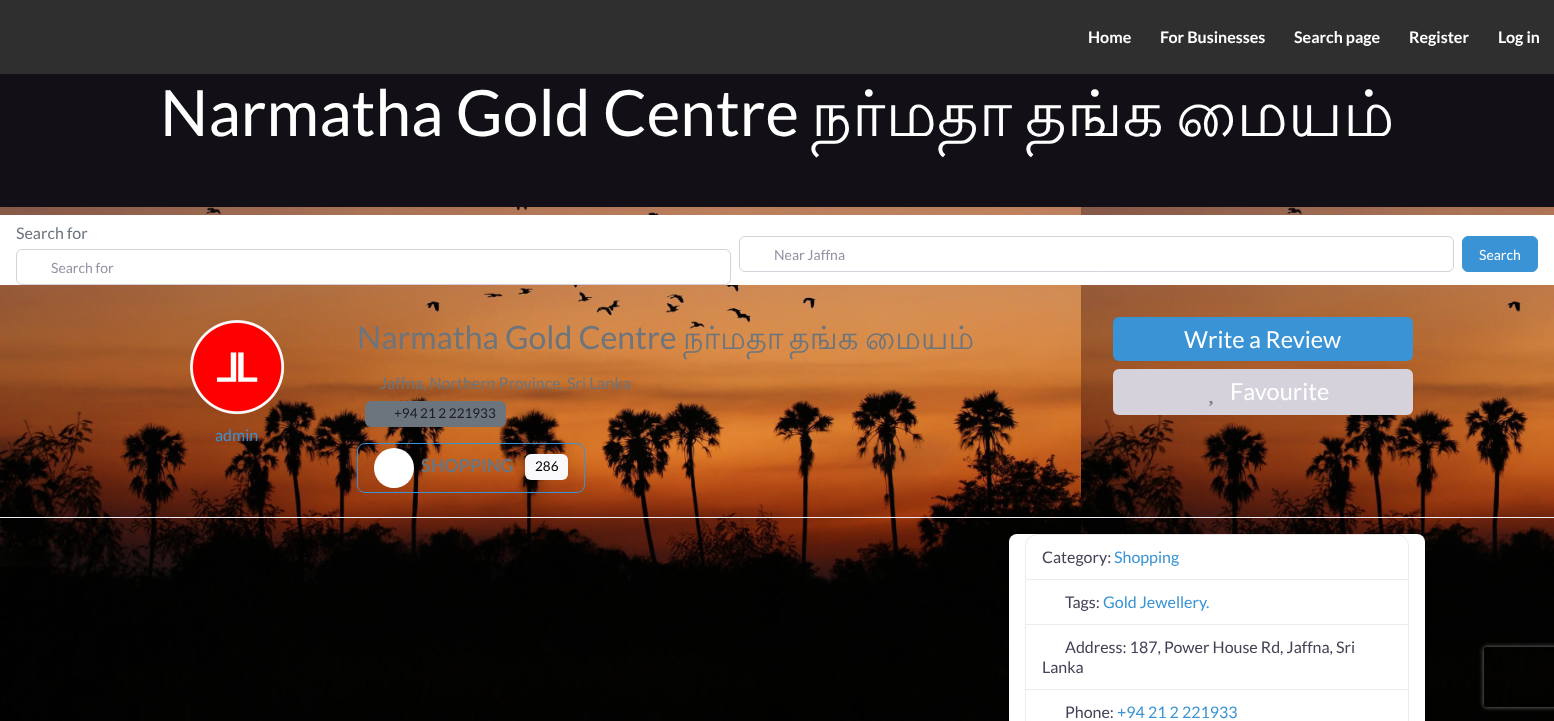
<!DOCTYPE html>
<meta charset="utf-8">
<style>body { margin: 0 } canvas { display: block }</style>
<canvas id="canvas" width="1554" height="721"></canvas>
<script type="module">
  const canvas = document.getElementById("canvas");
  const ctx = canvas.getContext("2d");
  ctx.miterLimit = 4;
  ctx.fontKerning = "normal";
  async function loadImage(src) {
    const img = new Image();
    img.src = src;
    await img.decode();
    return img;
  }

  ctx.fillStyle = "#ffffff";
  ctx.fillRect(0, 0, 1554, 721);
  ctx.drawImage(await loadImage("img1.png"), 0, 207, 1554, 514);
  ctx.fillStyle = "#2f2f2f";
  ctx.fillRect(0, 0, 1554, 74);
  ctx.font = "bold 16px Lato";
  ctx.fillStyle = "#ffffff";
  ctx.fillText("Home", 1088, 43);
  ctx.fillText("For Businesses", 1160, 43);
  ctx.fillText("Search page", 1294, 43);
  ctx.fillText("Register", 1409, 43);
  ctx.fillText("Log in", 1498, 43);
  ctx.fillStyle = "#121016";
  ctx.fillRect(0, 74, 1554, 133);
  ctx.font = "64px Lato";
  ctx.fillStyle = "#ffffff";
  ctx.fillText("Narmatha Gold Centre", 160, 136);
  ctx.font = "64px Lohit Tamil";
  ctx.fillText("நர்மதா", 811, 136);
  ctx.fillText("தங்க", 1025, 136);
  ctx.fillText("மையம்", 1176, 136);
  ctx.fillRect(0, 215, 1554, 70);
  ctx.font = "16px Lato";
  ctx.fillStyle = "#6c757d";
  ctx.fillText("Search for", 16, 239);
  ctx.beginPath();
  ctx.roundRect(16.5, 249.5, 714, 35, 5.5);
  ctx.strokeStyle = "#d5d2dc";
  ctx.stroke();
  ctx.font = "14px Lato";
  ctx.fillStyle = "#9691a4";
  ctx.fillText("Search for", 51, 273);
  ctx.beginPath();
  ctx.roundRect(739.5, 236.5, 714, 35, 5.5);
  ctx.stroke();
  ctx.fillText("Near Jaffna", 774, 260);
  ctx.fillStyle = "#3993d5";
  ctx.beginPath();
  ctx.roundRect(1462.5, 236.5, 75, 35, 5.5);
  ctx.fill();
  ctx.strokeStyle = "#3993d5";
  ctx.stroke();
  ctx.fillStyle = "#ffffff";
  ctx.fillText("Search", 1479, 260);
  ctx.fillStyle = "#efecf3";
  ctx.fillRect(0, 517, 1554, 1);
  ctx.font = "32px Lato";
  ctx.fillStyle = "#6c757d";
  ctx.fillText("Narmatha Gold Centre", 357, 349);
  ctx.font = "32px Lohit Tamil";
  ctx.fillText("நர்மதா", 683, 349);
  ctx.fillText("தங்க", 789, 349);
  ctx.fillText("மையம்", 865, 349);
  ctx.font = "16px Lato";
  ctx.fillText("Jaffna, Northern Province, Sri Lanka", 380, 389);
  ctx.beginPath();
  ctx.roundRect(365, 401, 141, 26, 6);
  ctx.fill();
  ctx.font = "13.5px Lato";
  ctx.fillStyle = "#1f1b2d";
  ctx.fillText("+94 21 2 221933", 394, 418);
  ctx.beginPath();
  ctx.roundRect(357.5, 443.5, 227, 49, 7.5);
  ctx.stroke();
  ctx.fillStyle = "#ffffff";
  ctx.beginPath();
  ctx.arc(394, 468, 20, 0, Math.PI * 2);
  ctx.fill();
  ctx.font = "bold 18px Lato";
  ctx.fillStyle = "#6c757d";
  ctx.fillText("SHOPPING", 421, 472);
  ctx.fillStyle = "#f9f8fa";
  ctx.beginPath();
  ctx.roundRect(525, 454, 43, 26, 6);
  ctx.fill();
  ctx.font = "13.5px Lato";
  ctx.fillStyle = "#000000";
  ctx.fillText("286", 535, 471);
  ctx.fillStyle = "#3993d5";
  ctx.beginPath();
  ctx.roundRect(1113, 317, 300, 44, 6);
  ctx.fill();
  ctx.font = "23.5px Lato";
  ctx.fillStyle = "#ffffff";
  ctx.fillText("Write a Review", 1184, 348);
  ctx.fillStyle = "#d5d2dc";
  ctx.beginPath();
  ctx.roundRect(1113, 369, 300, 46, 6);
  ctx.fill();
  ctx.fillStyle = "#ffffff";
  ctx.fillText("Favourite", 1230, 400);
  ctx.drawImage(await loadImage("img2.png"), 1208, 400, 5, 6);
  ctx.drawImage(await loadImage("img3.png"), 190, 320, 95, 95);
  ctx.font = "16px Lato";
  ctx.fillStyle = "#3993d5";
  ctx.fillText("admin", 215, 441);
  ctx.fillStyle = "#ffffff";
  ctx.beginPath();
  ctx.roundRect(1009, 534, 416, 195, 8);
  ctx.fill();
  ctx.beginPath();
  ctx.roundRect(1025.5, 534.5, 383, 45, [11.5, 11.5, 0, 0]);
  ctx.strokeStyle = "#ebebeb";
  ctx.stroke();
  ctx.fillStyle = "#454056";
  ctx.fillText("Category:", 1042, 563);
  ctx.fillStyle = "#3993d5";
  ctx.fillText("Shopping", 1114, 563);
  ctx.fillStyle = "#ebebeb";
  ctx.beginPath();
  ctx.moveTo(1409, 580);
  ctx.lineTo(1409, 625);
  ctx.lineTo(1408, 624);
  ctx.lineTo(1408, 580);
  ctx.closePath();
  ctx.fill();
  ctx.fillStyle = "rgba(0, 0, 0, 0.08)";
  ctx.beginPath();
  ctx.moveTo(1409, 625);
  ctx.lineTo(1025, 625);
  ctx.lineTo(1026, 624);
  ctx.lineTo(1408, 624);
  ctx.closePath();
  ctx.fill();
  ctx.beginPath();
  ctx.moveTo(1025, 625);
  ctx.lineTo(1025, 580);
  ctx.lineTo(1026, 580);
  ctx.lineTo(1026, 624);
  ctx.closePath();
  ctx.fill();
  ctx.fillStyle = "#454056";
  ctx.fillText("Tags:", 1065, 608);
  ctx.fillStyle = "#3993d5";
  ctx.fillText("Gold Jewellery.", 1103, 608);
  ctx.fillStyle = "#ebebeb";
  ctx.beginPath();
  ctx.moveTo(1409, 625);
  ctx.lineTo(1409, 690);
  ctx.lineTo(1408, 689);
  ctx.lineTo(1408, 625);
  ctx.closePath();
  ctx.fill();
  ctx.fillStyle = "rgba(0, 0, 0, 0.08)";
  ctx.beginPath();
  ctx.moveTo(1409, 690);
  ctx.lineTo(1025, 690);
  ctx.lineTo(1026, 689);
  ctx.lineTo(1408, 689);
  ctx.closePath();
  ctx.fill();
  ctx.beginPath();
  ctx.moveTo(1025, 690);
  ctx.lineTo(1025, 625);
  ctx.lineTo(1026, 625);
  ctx.lineTo(1026, 689);
  ctx.closePath();
  ctx.fill();
  ctx.fillStyle = "#454056";
  ctx.fillText("Address: 187, Power House Rd, Jaffna, Sri", 1065, 653);
  ctx.fillText("Lanka", 1042, 673);
  ctx.fillStyle = "#ebebeb";
  ctx.beginPath();
  ctx.moveTo(1025, 690);
  ctx.lineTo(1409, 690);
  ctx.lineTo(1409, 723);
  ctx.bezierCurveTo(1409, 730, 1404, 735, 1397, 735);
  ctx.lineTo(1037, 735);
  ctx.bezierCurveTo(1030, 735, 1025, 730, 1025, 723);
  ctx.closePath();
  ctx.moveTo(1026, 690);
  ctx.lineTo(1408, 690);
  ctx.lineTo(1408, 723);
  ctx.bezierCurveTo(1408, 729, 1403, 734, 1397, 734);
  ctx.lineTo(1037, 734);
  ctx.bezierCurveTo(1031, 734, 1026, 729, 1026, 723);
  ctx.closePath();
  ctx.fill("evenodd");
  ctx.fillStyle = "#454056";
  ctx.fillText("Phone:", 1065, 718);
  ctx.fillStyle = "#3993d5";
  ctx.fillText("+94 21 2 221933", 1117, 718);
  ctx.save();
  ctx.beginPath();
  ctx.moveTo(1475, 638);
  ctx.lineTo(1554, 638);
  ctx.lineTo(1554, 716);
  ctx.lineTo(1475, 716);
  ctx.closePath();
  ctx.moveTo(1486, 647);
  ctx.lineTo(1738, 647);
  ctx.bezierCurveTo(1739, 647, 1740, 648, 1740, 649);
  ctx.lineTo(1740, 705);
  ctx.bezierCurveTo(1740, 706, 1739, 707, 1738, 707);
  ctx.lineTo(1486, 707);
  ctx.bezierCurveTo(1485, 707, 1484, 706, 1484, 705);
  ctx.lineTo(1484, 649);
  ctx.bezierCurveTo(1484, 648, 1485, 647, 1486, 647);
  ctx.closePath();
  ctx.clip("evenodd");
  ctx.fillStyle = "#808080";
  ctx.filter = "blur(2.5px)";
  ctx.beginPath();
  ctx.roundRect(1484, 647, 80, 60, 2);
  ctx.fill();
  ctx.filter = "none";
  ctx.restore();
</script>
